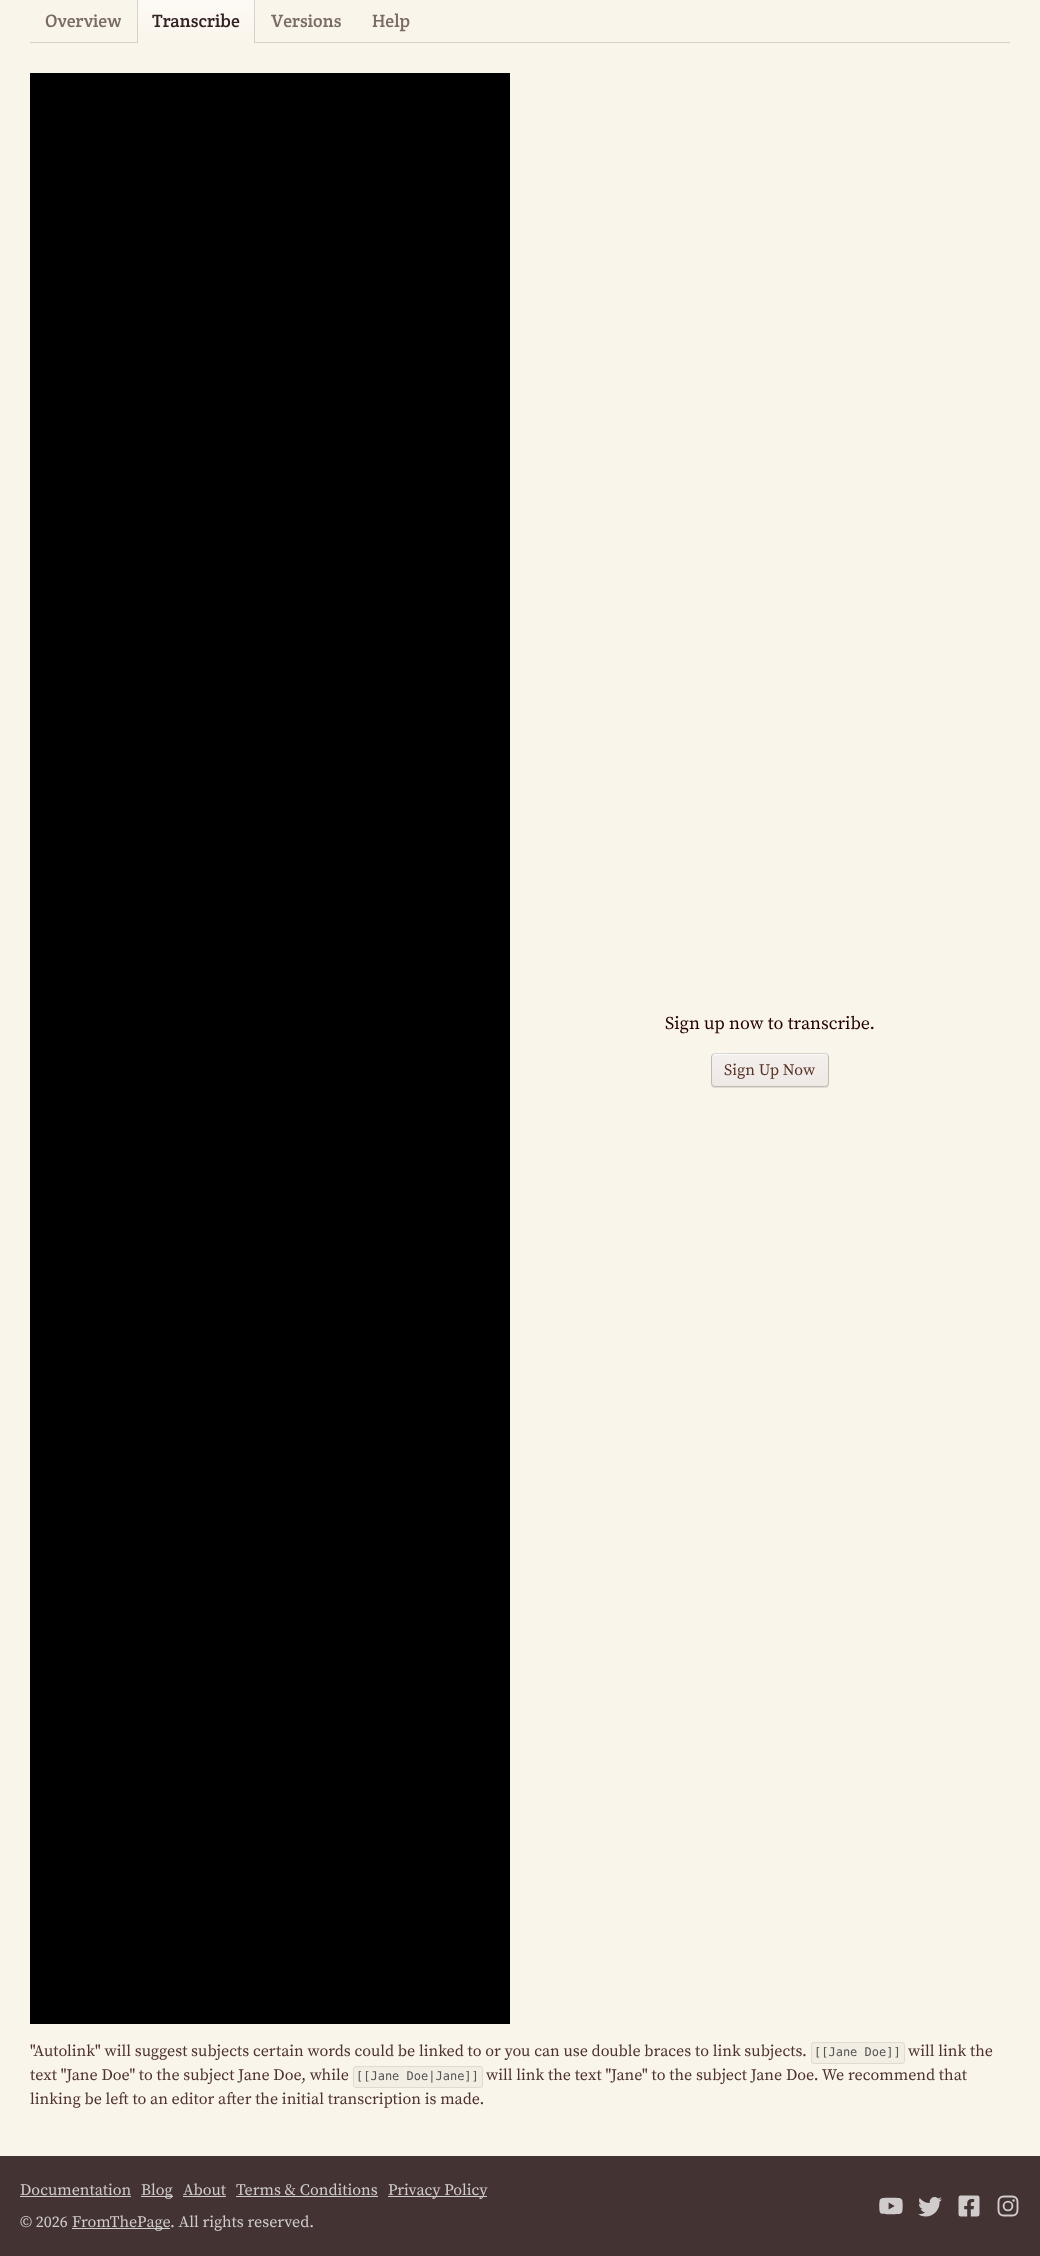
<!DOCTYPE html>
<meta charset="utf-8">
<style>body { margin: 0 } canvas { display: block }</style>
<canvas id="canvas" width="1040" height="2256"></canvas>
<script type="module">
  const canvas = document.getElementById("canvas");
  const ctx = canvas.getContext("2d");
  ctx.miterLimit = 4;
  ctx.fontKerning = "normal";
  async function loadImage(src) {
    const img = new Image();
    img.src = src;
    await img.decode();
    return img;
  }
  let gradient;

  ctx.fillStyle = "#faf5eb";
  ctx.fillRect(0, 0, 1040, 2256);
  ctx.fillStyle = "#d5d0c8";
  ctx.fillRect(30, 42, 980, 1);
  ctx.font = "18px Crete Round";
  ctx.fillStyle = "#796c68";
  ctx.fillText("Overview", 45, 27);
  gradient = ctx.createLinearGradient(196, -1, 196, 43);
  gradient.addColorStop(0, "#fdfaf5");
  gradient.addColorStop(1, "#faf5eb");
  ctx.fillStyle = gradient;
  ctx.fillRect(137, 0, 118, 43);
  ctx.fillStyle = "rgba(0, 0, 0, 0.15)";
  ctx.beginPath();
  ctx.moveTo(140, -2);
  ctx.lineTo(252, -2);
  ctx.bezierCurveTo(254, -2, 255, -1, 255, 1);
  ctx.lineTo(255, 43);
  ctx.lineTo(137, 43);
  ctx.lineTo(137, 1);
  ctx.bezierCurveTo(137, -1, 138, -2, 140, -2);
  ctx.closePath();
  ctx.moveTo(140, -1);
  ctx.lineTo(252, -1);
  ctx.bezierCurveTo(253, -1, 254, 0, 254, 1);
  ctx.lineTo(254, 43);
  ctx.lineTo(138, 43);
  ctx.lineTo(138, 1);
  ctx.bezierCurveTo(138, 0, 139, -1, 140, -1);
  ctx.closePath();
  ctx.fill("evenodd");
  ctx.fillStyle = "#332222";
  ctx.fillText("Transcribe", 152, 27);
  ctx.fillStyle = "#796c68";
  ctx.fillText("Versions", 271, 27);
  ctx.fillText("Help", 372, 27);
  ctx.fillStyle = "#000000";
  ctx.fillRect(30, 73, 480, 1951);
  ctx.font = "18px Source Serif Pro";
  ctx.fillStyle = "#220000";
  ctx.fillText("Sign up now to transcribe.", 665, 1029);
  ctx.fillStyle = "rgba(0, 0, 0, 0.1)";
  ctx.filter = "blur(0.5px)";
  ctx.beginPath();
  ctx.roundRect(711, 1054, 118, 34, 4);
  ctx.fill();
  ctx.filter = "none";
  ctx.fillStyle = "#efe9e6";
  ctx.beginPath();
  ctx.roundRect(712, 1054, 116, 32, 3);
  ctx.fill();
  gradient = ctx.createLinearGradient(770, 1054, 770, 1086);
  gradient.addColorStop(0, "rgba(255, 255, 255, 0.3)");
  gradient.addColorStop(1, "rgba(255, 255, 255, 0)");
  ctx.fillStyle = gradient;
  ctx.beginPath();
  ctx.roundRect(712, 1054, 116, 32, 3);
  ctx.fill();
  ctx.fillStyle = "rgba(255, 255, 255, 0.8)";
  ctx.beginPath();
  ctx.moveTo(715, 1055);
  ctx.lineTo(825, 1055);
  ctx.bezierCurveTo(827, 1055, 828, 1056, 828, 1058);
  ctx.bezierCurveTo(828, 1056, 827, 1054, 825, 1054);
  ctx.lineTo(733, 1054);
  ctx.bezierCurveTo(732, 1054, 712, 1049, 712, 1058);
  ctx.bezierCurveTo(712, 1056, 713, 1055, 715, 1055);
  ctx.closePath();
  ctx.fill();
  ctx.beginPath();
  ctx.roundRect(711.5, 1053.5, 117, 33, 3.5);
  ctx.strokeStyle = "rgba(0, 0, 0, 0.15)";
  ctx.stroke();
  ctx.font = "16px Source Serif Pro";
  ctx.fillStyle = "#553322";
  ctx.fillText("Sign Up Now", 724, 1075);
  ctx.fillStyle = "#4d312f";
  ctx.fillText("\"Autolink\" will suggest subjects certain words could be linked to or you can use double braces to link subjects.", 30, 2056);
  ctx.fillStyle = "#f3eee4";
  ctx.beginPath();
  ctx.roundRect(811, 2042, 94, 22, 3);
  ctx.fill();
  ctx.beginPath();
  ctx.roundRect(811.5, 2042.5, 93, 21, 2.5);
  ctx.strokeStyle = "rgba(0, 0, 0, 0.08)";
  ctx.stroke();
  ctx.font = "12px DejaVu Sans Mono";
  ctx.fillStyle = "#555555";
  ctx.fillText("[[Jane Doe]]", 814, 2056);
  ctx.font = "16px Source Serif Pro";
  ctx.fillStyle = "#4d312f";
  ctx.fillText("will link the", 908, 2056);
  ctx.fillText("text \"Jane Doe\" to the subject Jane Doe, while", 30, 2080);
  ctx.fillStyle = "#f3eee4";
  ctx.beginPath();
  ctx.roundRect(353, 2066, 130, 22, 3);
  ctx.fill();
  ctx.beginPath();
  ctx.roundRect(353.5, 2066.5, 129, 21, 2.5);
  ctx.stroke();
  ctx.font = "12px DejaVu Sans Mono";
  ctx.fillStyle = "#555555";
  ctx.fillText("[[Jane Doe|Jane]]", 356, 2080);
  ctx.font = "16px Source Serif Pro";
  ctx.fillStyle = "#4d312f";
  ctx.fillText("will link the text \"Jane\" to the subject Jane Doe. We recommend that", 486, 2080);
  ctx.fillText("linking be left to an editor after the initial transcription is made.", 30, 2104);
  ctx.fillStyle = "#443333";
  ctx.fillRect(0, 2156, 1040, 100);
  ctx.fillStyle = "#d0cccc";
  ctx.fillText("Documentation", 20, 2195);
  ctx.fillRect(20, 2196, 111, 1);
  ctx.fillRect(141, 2196, 32, 1);
  ctx.fillText("Blog", 141, 2195);
  ctx.fillText("About", 183, 2195);
  ctx.fillRect(183, 2196, 43, 1);
  ctx.fillText("Terms & Conditions", 236, 2195);
  ctx.fillRect(236, 2196, 142, 1);
  ctx.fillRect(388, 2196, 99, 1);
  ctx.fillText("Privacy Policy", 388, 2195);
  ctx.fillText("© 2026", 20, 2227);
  ctx.fillRect(72, 2228, 98, 1);
  ctx.fillText("FromThePage", 72, 2227);
  ctx.fillText(". All rights reserved.", 170, 2227);
  ctx.drawImage(await loadImage("img1.png"), 879, 2197, 24, 18);
  ctx.drawImage(await loadImage("img2.png"), 918, 2197, 24, 20);
  ctx.drawImage(await loadImage("img3.png"), 958, 2195, 22, 22);
  ctx.drawImage(await loadImage("img4.png"), 997, 2195, 22, 22);
</script>
